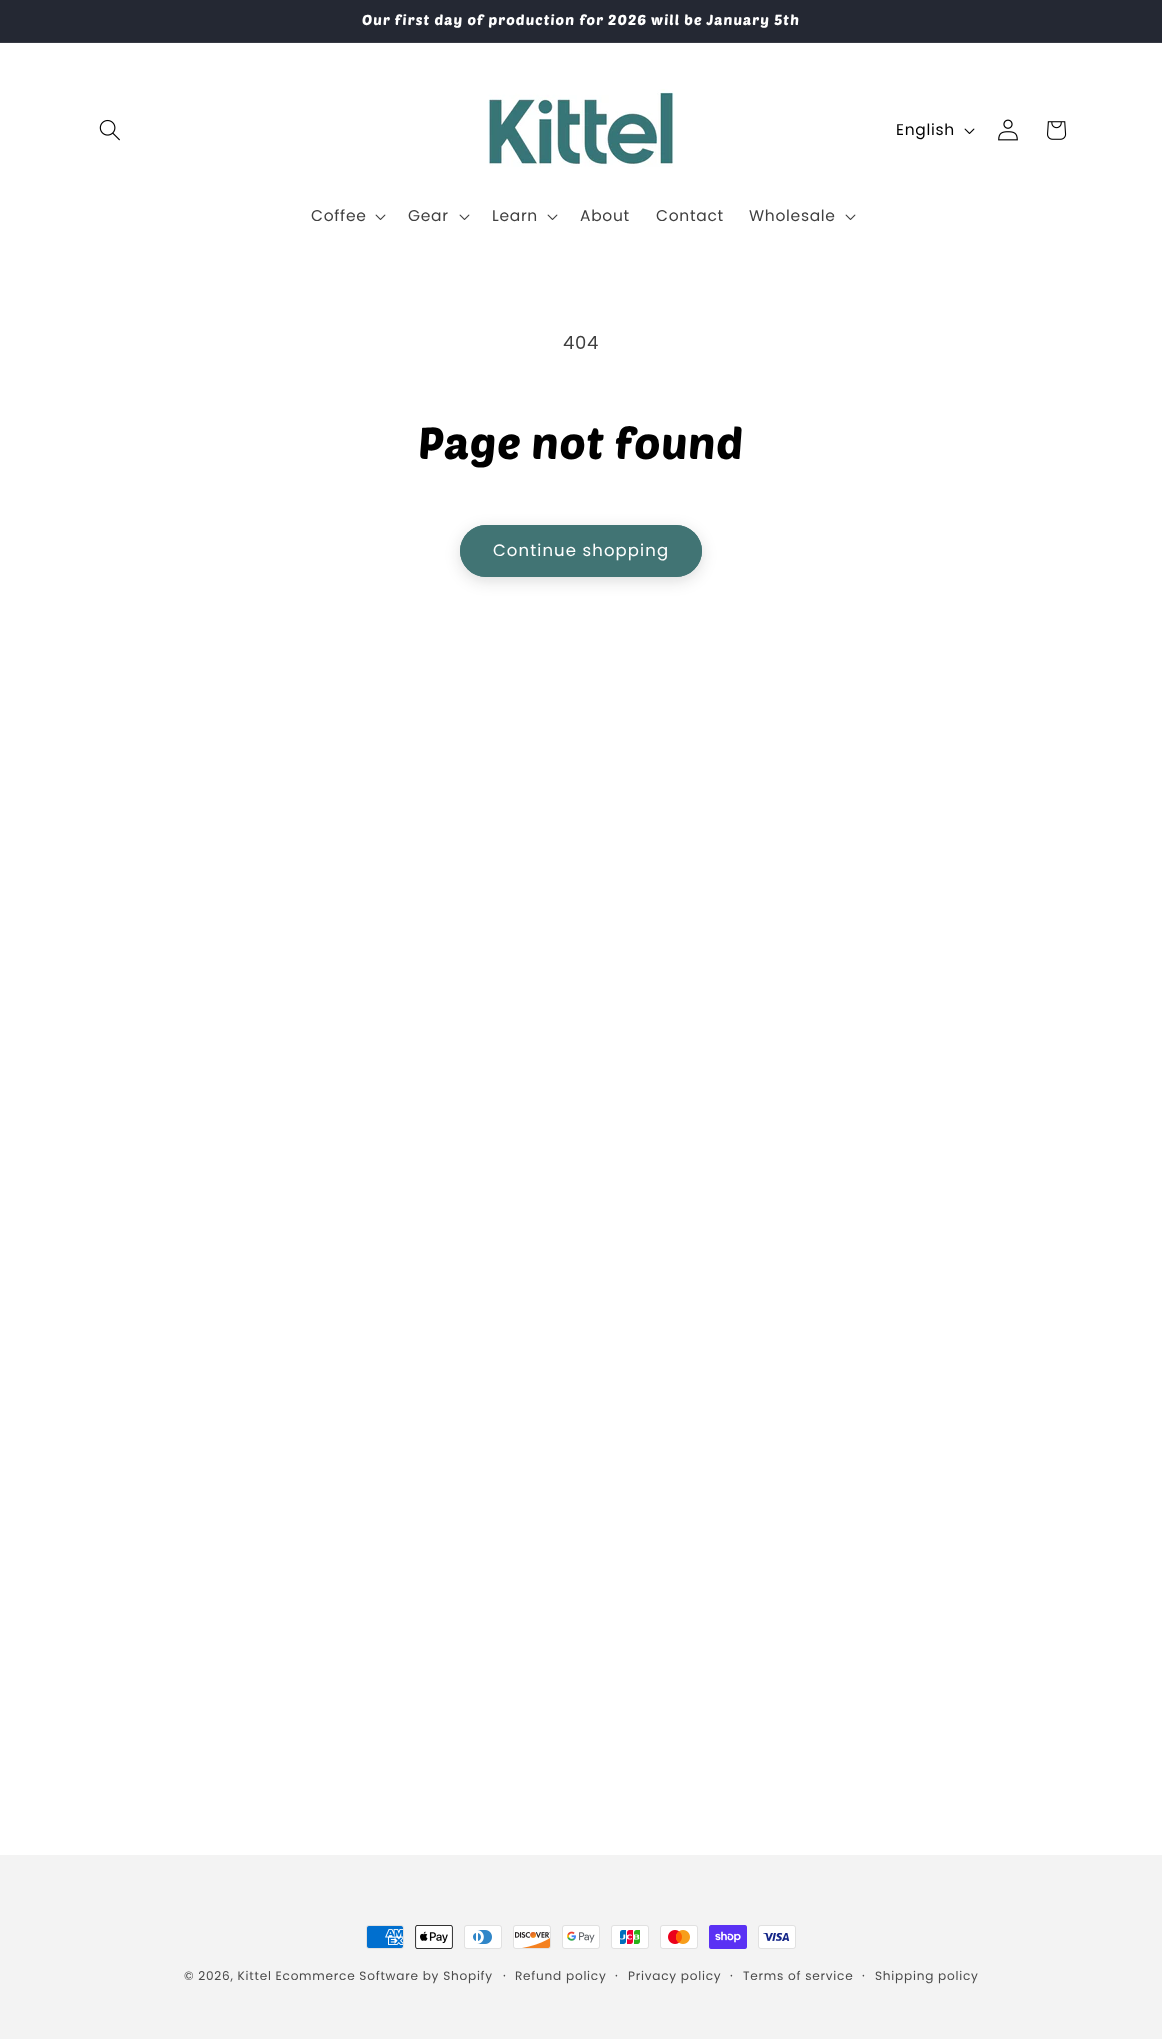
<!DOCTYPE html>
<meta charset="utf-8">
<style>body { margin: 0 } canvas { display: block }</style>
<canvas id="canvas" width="1162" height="2039"></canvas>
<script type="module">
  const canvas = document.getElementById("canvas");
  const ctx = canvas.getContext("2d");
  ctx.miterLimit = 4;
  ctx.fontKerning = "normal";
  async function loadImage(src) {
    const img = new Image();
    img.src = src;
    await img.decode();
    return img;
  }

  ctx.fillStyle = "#ffffff";
  ctx.fillRect(0, 0, 1162, 2039);
  ctx.fillStyle = "#242833";
  ctx.fillRect(0, 0, 1162, 42);
  ctx.fillStyle = "#363943";
  ctx.fillRect(0, 42, 1162, 1);
  ctx.letterSpacing = "1.1px";
  ctx.font = "14.3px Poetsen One";
  ctx.fillStyle = "#ffffff";
  ctx.fillText("Our first day of production for 2026 will be January 5th", 362, 25);
  ctx.drawImage(await loadImage("img1.png"), 99, 119, 21, 22);
  ctx.drawImage(await loadImage("img2.png"), 488, 89, 186, 78);
  ctx.letterSpacing = "0.7px";
  ctx.font = "15.5px Poppins";
  ctx.fillStyle = "#000000";
  ctx.fillText("English", 896, 135);
  ctx.drawImage(await loadImage("img3.png"), 964, 128, 11, 6);
  ctx.drawImage(await loadImage("img4.png"), 998, 119, 20, 22);
  ctx.drawImage(await loadImage("img5.png"), 1047, 121, 20, 19);
  ctx.fillStyle = "#404040";
  ctx.fillText("Coffee", 311, 221);
  ctx.drawImage(await loadImage("img6.png"), 375, 214, 11, 6);
  ctx.fillText("Gear", 408, 221);
  ctx.drawImage(await loadImage("img6.png"), 459, 214, 11, 6);
  ctx.fillText("Learn", 492, 221);
  ctx.drawImage(await loadImage("img6.png"), 547, 214, 11, 6);
  ctx.fillText("About", 580, 221);
  ctx.fillText("Contact", 656, 221);
  ctx.fillText("Wholesale", 749, 221);
  ctx.drawImage(await loadImage("img6.png"), 845, 214, 11, 6);
  ctx.font = "18px Poppins";
  ctx.fillText("404", 563, 349);
  ctx.font = "44px Poetsen One";
  ctx.fillStyle = "#000000";
  ctx.fillText("Page not found", 418, 459);
  ctx.fillStyle = "rgba(18, 18, 18, 0.15)";
  ctx.filter = "blur(7.5px)";
  ctx.beginPath();
  ctx.roundRect(460, 529, 242, 52, 26);
  ctx.fill();
  ctx.filter = "none";
  ctx.fillStyle = "#417474";
  ctx.beginPath();
  ctx.roundRect(460, 525, 242, 52, 26);
  ctx.fill();
  ctx.beginPath();
  ctx.roundRect(460.5, 525.5, 241, 51, 25.5);
  ctx.strokeStyle = "#417474";
  ctx.stroke();
  ctx.letterSpacing = "1.1px";
  ctx.font = "16.5px Poppins";
  ctx.fillStyle = "#ffffff";
  ctx.fillText("Continue shopping", 493, 556);
  ctx.fillStyle = "#f3f3f3";
  ctx.fillRect(0, 1855, 1162, 184);
  ctx.drawImage(await loadImage("img7.png"), 366, 1925, 38, 24);
  ctx.drawImage(await loadImage("img8.png"), 415, 1925, 38, 24);
  ctx.drawImage(await loadImage("img9.png"), 464, 1925, 38, 24);
  ctx.drawImage(await loadImage("img10.png"), 513, 1925, 38, 24);
  ctx.drawImage(await loadImage("img11.png"), 562, 1925, 38, 24);
  ctx.drawImage(await loadImage("img12.png"), 611, 1925, 38, 24);
  ctx.drawImage(await loadImage("img13.png"), 660, 1925, 38, 24);
  ctx.drawImage(await loadImage("img14.png"), 709, 1925, 38, 24);
  ctx.drawImage(await loadImage("img15.png"), 758, 1925, 38, 24);
  ctx.letterSpacing = "0.75px";
  ctx.font = "12.1px Poppins";
  ctx.fillStyle = "#4a4a4a";
  ctx.fillText("© 2026, Kittel Ecommerce Software by Shopify", 184, 1980);
  ctx.font = "13px Poppins";
  ctx.fillText("·", 503, 1980);
  ctx.font = "12.1px Poppins";
  ctx.fillText("Refund policy", 515, 1980);
  ctx.font = "13px Poppins";
  ctx.fillText("·", 615, 1980);
  ctx.font = "12.1px Poppins";
  ctx.fillText("Privacy policy", 628, 1980);
  ctx.font = "13px Poppins";
  ctx.fillText("·", 730, 1980);
  ctx.font = "12.1px Poppins";
  ctx.fillText("Terms of service", 743, 1980);
  ctx.font = "13px Poppins";
  ctx.fillText("·", 862, 1980);
  ctx.font = "12.1px Poppins";
  ctx.fillText("Shipping policy", 875, 1980);
</script>
